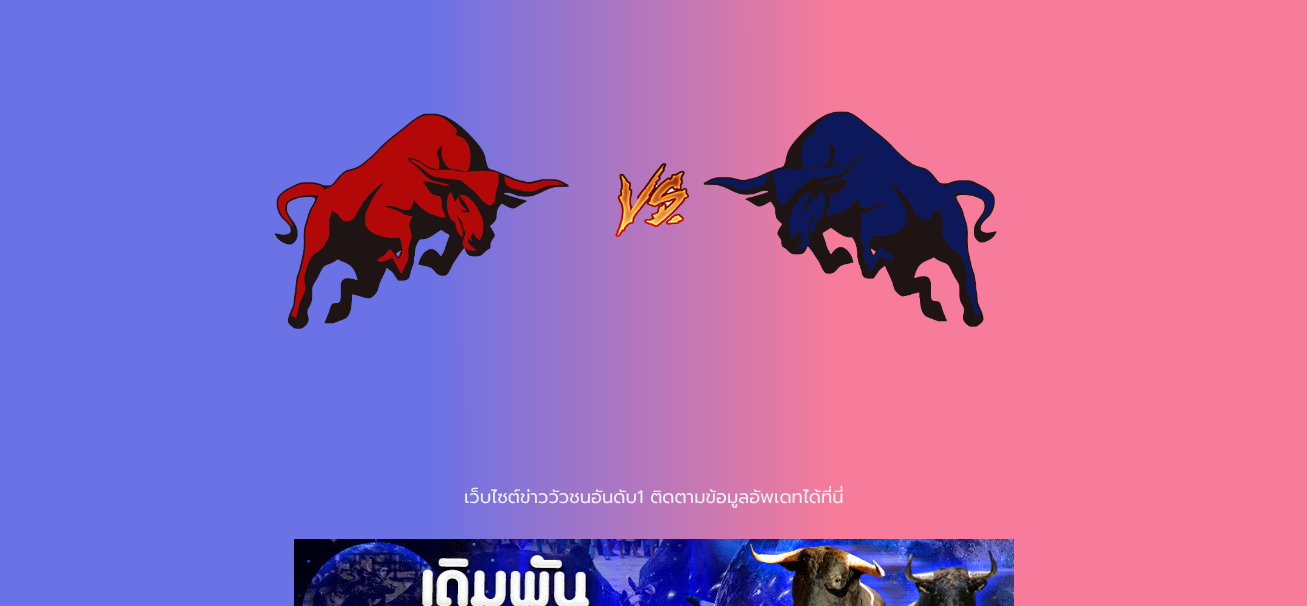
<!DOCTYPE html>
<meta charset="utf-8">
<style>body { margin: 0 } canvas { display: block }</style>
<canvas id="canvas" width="1307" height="606"></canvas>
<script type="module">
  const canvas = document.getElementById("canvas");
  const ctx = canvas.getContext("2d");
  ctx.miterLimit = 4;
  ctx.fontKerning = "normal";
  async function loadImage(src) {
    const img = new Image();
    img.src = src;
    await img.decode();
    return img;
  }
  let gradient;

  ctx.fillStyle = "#ffffff";
  ctx.fillRect(0, 0, 1307, 606);
  gradient = ctx.createLinearGradient(0, 380, 1307, 379);
  gradient.addColorStop(0.33, "#6b72e5");
  gradient.addColorStop(0.64, "#f77b9a");
  ctx.fillStyle = gradient;
  ctx.fillRect(0, 0, 1307, 606);
  ctx.drawImage(await loadImage("img1.png"), 274, 113, 295, 216);
  ctx.drawImage(await loadImage("img2.png"), 615, 163, 74, 74);
  ctx.drawImage(await loadImage("img3.png"), 703, 111, 294, 216);
  ctx.font = "18px Prompt";
  ctx.fillStyle = "#ededf4";
  ctx.fillText("เว็บไซต์ข่าววัวชนอันดับ1 ติดตามข้อมูลอัพเดทได้ที่นี่", 464, 503);
  ctx.drawImage(await loadImage("img4.png"), 294, 539, 720, 67);
</script>
